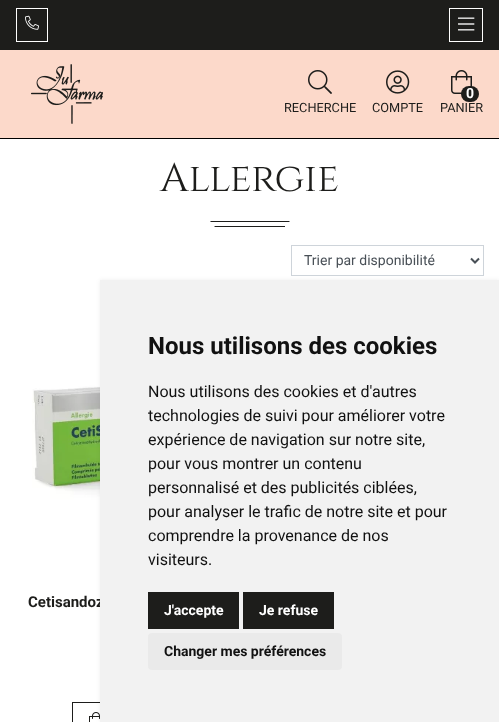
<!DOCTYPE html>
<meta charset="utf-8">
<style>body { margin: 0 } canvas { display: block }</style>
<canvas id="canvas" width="499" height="722"></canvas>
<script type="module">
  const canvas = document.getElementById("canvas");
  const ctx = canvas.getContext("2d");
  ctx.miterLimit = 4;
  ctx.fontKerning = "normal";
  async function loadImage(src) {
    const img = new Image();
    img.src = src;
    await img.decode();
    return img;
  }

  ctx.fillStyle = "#ffffff";
  ctx.fillRect(0, 0, 499, 722);
  ctx.fillStyle = "#fcd9ca";
  ctx.fillRect(0, 50, 499, 88);
  ctx.fillStyle = "#000000";
  ctx.fillRect(0, 138, 499, 1);
  ctx.fillStyle = "#1d1d1b";
  ctx.fillRect(0, 0, 499, 50);
  ctx.strokeStyle = "#ffffff";
  ctx.strokeRect(16.5, 8.5, 31, 33);
  ctx.drawImage(await loadImage("img1.png"), 25, 15, 14, 15);
  ctx.strokeRect(449.5, 8.5, 33, 33);
  ctx.drawImage(await loadImage("img2.png"), 458, 17, 17, 14);
  ctx.drawImage(await loadImage("img3.png"), 31, 64, 72, 60);
  ctx.drawImage(await loadImage("img4.png"), 308, 70, 24, 24);
  ctx.font = "12.75px Roboto";
  ctx.fillText("RECHERCHE", 284, 112);
  ctx.drawImage(await loadImage("img5.png"), 386, 70, 24, 24);
  ctx.fillText("COMPTE", 372, 112);
  ctx.drawImage(await loadImage("img6.png"), 451, 70, 21, 24);
  ctx.beginPath();
  ctx.roundRect(461, 86, 18, 16, 8);
  ctx.fill();
  ctx.font = "bold 14px Roboto";
  ctx.fillStyle = "#ffffff";
  ctx.fillText("0", 466, 98);
  ctx.font = "12.75px Roboto";
  ctx.fillStyle = "#1d1d1b";
  ctx.fillText("PANIER", 440, 112);
  ctx.font = "40px Cinzel";
  ctx.fillText("Allergie", 160, 191);
  ctx.beginPath();
  ctx.moveTo(289, 221);
  ctx.lineTo(211, 221);
  ctx.lineTo(210, 221);
  ctx.lineTo(211, 222);
  ctx.lineTo(289, 222);
  ctx.bezierCurveTo(290, 222, 290, 221, 289, 221);
  ctx.closePath();
  ctx.fill();
  ctx.beginPath();
  ctx.moveTo(285, 226);
  ctx.lineTo(215, 226);
  ctx.bezierCurveTo(214, 227, 214, 227, 215, 227);
  ctx.lineTo(285, 227);
  ctx.bezierCurveTo(285, 227, 285, 226, 285, 226);
  ctx.closePath();
  ctx.fill();
  ctx.strokeStyle = "#ced4da";
  ctx.strokeRect(291.5, 245.5, 192, 30);
  ctx.beginPath();
  ctx.moveTo(471, 258.5);
  ctx.lineTo(475, 262.5);
  ctx.lineTo(479, 258.5);
  ctx.strokeStyle = "#495057";
  ctx.lineWidth = 2;
  ctx.stroke();
  ctx.font = "14px Roboto";
  ctx.fillStyle = "#495057";
  ctx.fillText("Trier par disponibilité", 304, 265);
  ctx.drawImage(await loadImage("img7.png"), 32, 381, 68, 162);
  ctx.font = "bold 15px Roboto";
  ctx.fillStyle = "#1d1d1b";
  ctx.fillText("Cetisandoz", 28, 607);
  ctx.strokeStyle = "#1d1d1b";
  ctx.lineWidth = 1;
  ctx.strokeRect(72.5, 702.5, 105, 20);
  ctx.drawImage(await loadImage("img8.png"), 89, 712, 11, 10);
  ctx.fillStyle = "rgba(0, 0, 0, 0.07)";
  ctx.filter = "blur(2px)";
  ctx.beginPath();
  ctx.rect(100, 280, 399, 442);
  ctx.fill();
  ctx.filter = "none";
  ctx.fillStyle = "#f2f2f2";
  ctx.fillRect(100, 280, 399, 442);
  ctx.font = "bold 24px Roboto";
  ctx.fillStyle = "#111111";
  ctx.fillText("Nous utilisons des cookies", 148, 354);
  ctx.font = "16px Roboto";
  ctx.fillText("Nous utilisons des cookies et d'autres", 148, 397);
  ctx.fillText("technologies de suivi pour améliorer votre", 148, 421);
  ctx.fillText("expérience de navigation sur notre site,", 148, 445);
  ctx.fillText("pour vous montrer un contenu", 148, 469);
  ctx.fillText("personnalisé et des publicités ciblées,", 148, 493);
  ctx.fillText("pour analyser le trafic de notre site et pour", 148, 517);
  ctx.fillText("comprendre la provenance de nos", 148, 541);
  ctx.fillText("visiteurs.", 148, 565);
  ctx.fillStyle = "#1d1d1b";
  ctx.fillRect(148, 592, 91, 37);
  ctx.font = "bold 14px Roboto";
  ctx.fillStyle = "#ffffff";
  ctx.fillText("J'accepte", 164, 615);
  ctx.fillStyle = "#1d1d1b";
  ctx.fillRect(243, 592, 91, 37);
  ctx.fillStyle = "#ffffff";
  ctx.fillText("Je refuse", 259, 615);
  ctx.fillStyle = "#eaeaea";
  ctx.beginPath();
  ctx.roundRect(148, 633, 194, 37, 4);
  ctx.fill();
  ctx.fillStyle = "#111111";
  ctx.fillText("Changer mes préférences", 164, 656);
</script>
